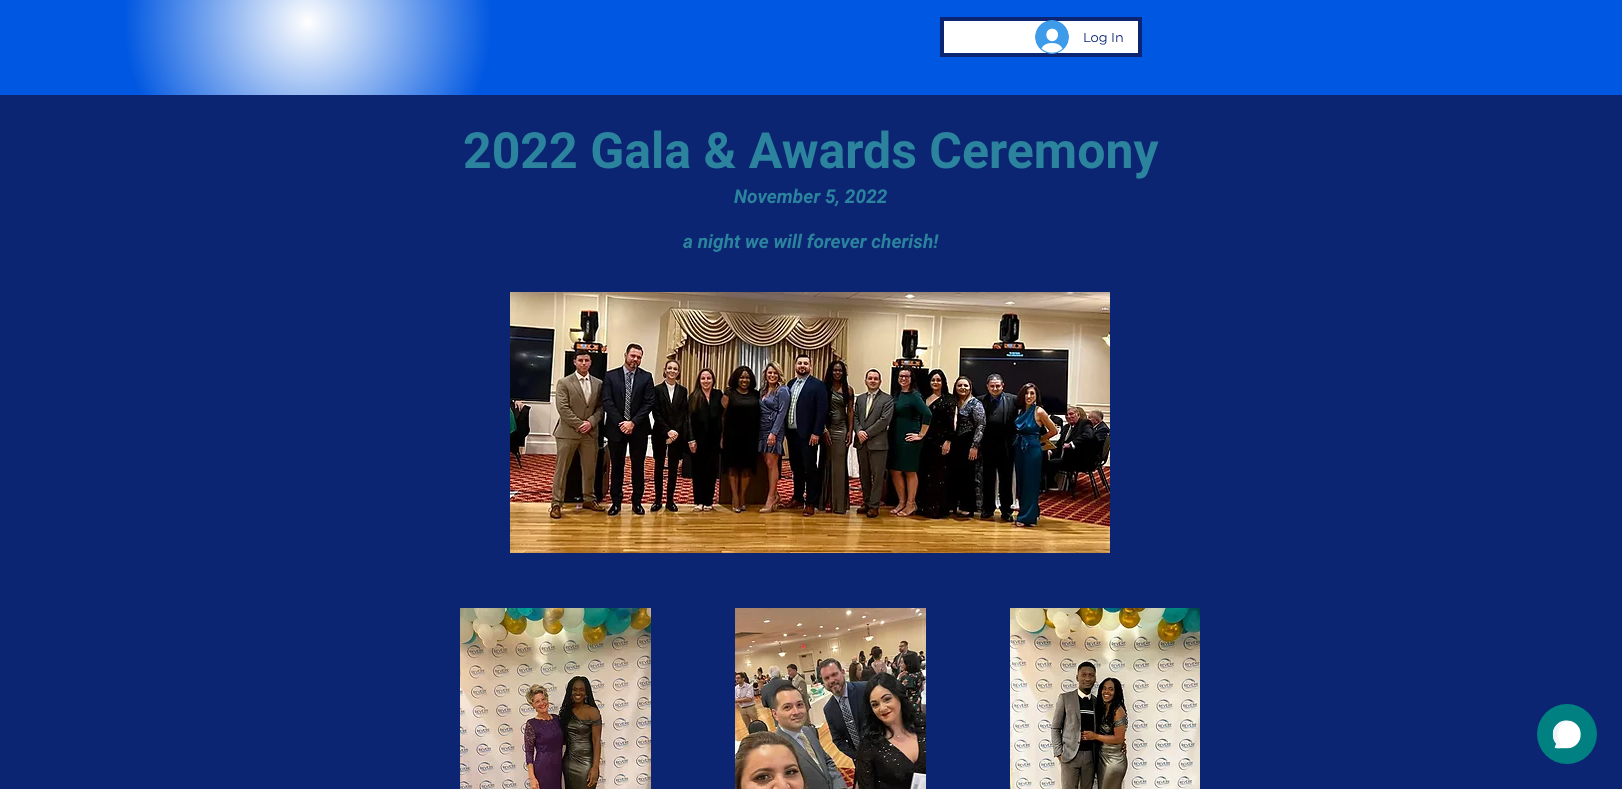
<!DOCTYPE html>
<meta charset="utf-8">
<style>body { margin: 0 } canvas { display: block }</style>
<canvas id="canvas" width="1622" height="789"></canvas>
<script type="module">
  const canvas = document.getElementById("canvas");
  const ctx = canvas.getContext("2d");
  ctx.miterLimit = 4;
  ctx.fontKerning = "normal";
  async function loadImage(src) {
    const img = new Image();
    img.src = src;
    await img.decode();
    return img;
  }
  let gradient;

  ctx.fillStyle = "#0b2572";
  ctx.fillRect(0, 0, 1622, 789);
  gradient = ctx.createRadialGradient(308, 22, 0, 308, 22, 1316);
  gradient.addColorStop(0, "#0b2572");
  gradient.addColorStop(0, "#7ba8ef");
  gradient.addColorStop(0, "#0057e1");
  gradient.addColorStop(0, "#fffffe");
  gradient.addColorStop(0.14, "#0057e1");
  ctx.fillStyle = gradient;
  ctx.fillRect(0, 0, 1622, 95);
  ctx.fillStyle = "#ffffff";
  ctx.beginPath();
  ctx.rect(942, 19, 198, 36);
  ctx.fill();
  ctx.strokeStyle = "#0b2572";
  ctx.lineWidth = 4;
  ctx.stroke();
  ctx.drawImage(await loadImage("img1.png"), 1035, 20, 34, 34);
  ctx.font = "13px Montserrat";
  ctx.fillStyle = "#0b2572";
  ctx.fillText("Log In", 1083, 42);
  ctx.font = "bold 50px Roboto";
  ctx.fillStyle = "#2b839e";
  ctx.fillText("2022 Gala & Awards Ceremony", 463, 168);
  ctx.font = "italic bold 19px Roboto";
  ctx.fillText("November 5, 2022", 734, 203);
  ctx.fillText("a night we will forever cherish!", 683, 248);
  ctx.drawImage(await loadImage("img2.png"), 510, 292, 600, 261);
  ctx.drawImage(await loadImage("img3.png"), 460, 608, 191, 181);
  ctx.drawImage(await loadImage("img4.png"), 735, 608, 191, 181);
  ctx.drawImage(await loadImage("img5.png"), 1010, 608, 190, 181);
  ctx.fillStyle = "#008080";
  ctx.beginPath();
  ctx.arc(1567, 734, 30, 0, Math.PI * 2);
  ctx.fill();
  ctx.drawImage(await loadImage("img6.png"), 1552, 720, 29, 29);
</script>
